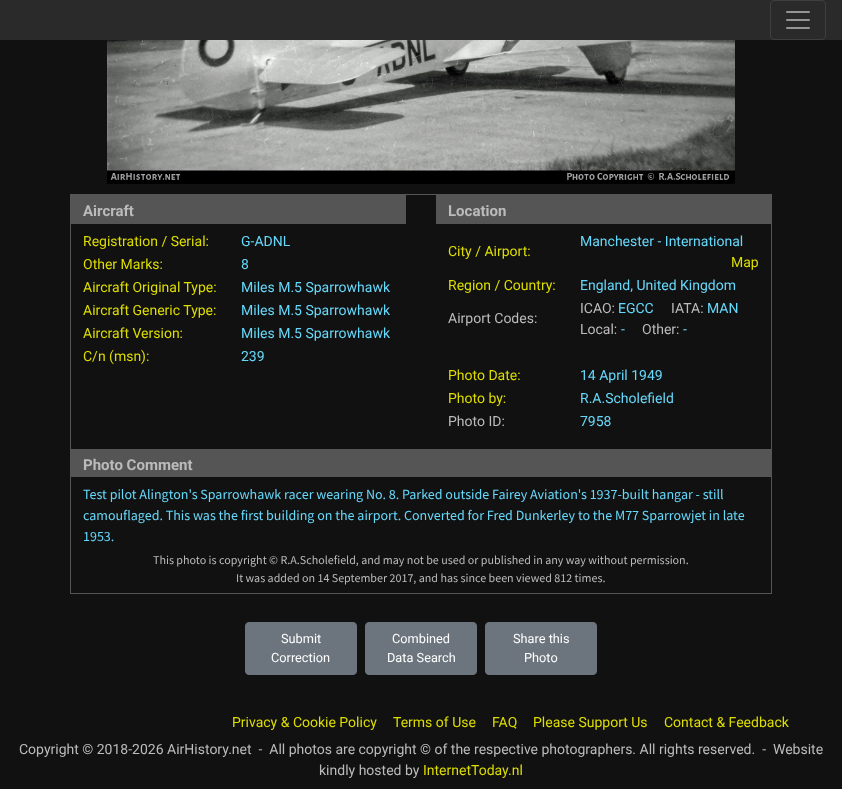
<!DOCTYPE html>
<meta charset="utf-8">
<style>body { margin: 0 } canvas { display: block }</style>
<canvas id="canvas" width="842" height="789"></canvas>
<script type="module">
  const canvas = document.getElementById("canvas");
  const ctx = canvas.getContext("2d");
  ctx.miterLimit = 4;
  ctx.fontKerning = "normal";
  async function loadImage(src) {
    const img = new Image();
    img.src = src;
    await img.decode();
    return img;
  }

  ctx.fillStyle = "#111111";
  ctx.fillRect(0, 0, 842, 789);
  ctx.fillStyle = "#2a2a2a";
  ctx.fillRect(0, 0, 842, 40);
  ctx.beginPath();
  ctx.roundRect(770.5, 0.5, 55, 39, 3.5);
  ctx.strokeStyle = "#3f3f3f";
  ctx.stroke();
  ctx.drawImage(await loadImage("img1.png"), 786, 11, 24, 18);
  ctx.drawImage(await loadImage("img2.png"), 107, 40, 628, 144);
  ctx.strokeStyle = "#555555";
  ctx.strokeRect(70.5, 194.5, 701, 399);
  ctx.fillStyle = "#555555";
  ctx.fillRect(71, 195, 335, 29);
  ctx.font = "bold 15px Roboto";
  ctx.fillStyle = "#bbbbbb";
  ctx.fillText("Aircraft", 83, 216);
  ctx.font = "14px Roboto";
  ctx.fillStyle = "#dddd00";
  ctx.fillText("Registration / Serial:", 83, 246);
  ctx.fillStyle = "#66d8fa";
  ctx.fillText("G-ADNL", 241, 246);
  ctx.fillStyle = "#dddd00";
  ctx.fillText("Other Marks:", 83, 269);
  ctx.fillStyle = "#66d8fa";
  ctx.fillText("8", 241, 269);
  ctx.fillStyle = "#dddd00";
  ctx.fillText("Aircraft Original Type:", 83, 292);
  ctx.fillStyle = "#66d8fa";
  ctx.fillText("Miles M.5 Sparrowhawk", 241, 292);
  ctx.fillStyle = "#dddd00";
  ctx.fillText("Aircraft Generic Type:", 83, 315);
  ctx.fillStyle = "#66d8fa";
  ctx.fillText("Miles M.5 Sparrowhawk", 241, 315);
  ctx.fillStyle = "#dddd00";
  ctx.fillText("Aircraft Version:", 83, 338);
  ctx.fillStyle = "#66d8fa";
  ctx.fillText("Miles M.5 Sparrowhawk", 241, 338);
  ctx.fillStyle = "#dddd00";
  ctx.fillText("C/n (msn):", 83, 361);
  ctx.fillStyle = "#66d8fa";
  ctx.fillText("239", 241, 361);
  ctx.fillStyle = "#555555";
  ctx.fillRect(436, 195, 335, 29);
  ctx.font = "bold 15px Roboto";
  ctx.fillStyle = "#bbbbbb";
  ctx.fillText("Location", 448, 216);
  ctx.font = "14px Roboto";
  ctx.fillStyle = "#dddd00";
  ctx.fillText("City / Airport:", 448, 256);
  ctx.fillStyle = "#66d8fa";
  ctx.fillText("Manchester - International", 580, 246);
  ctx.fillStyle = "#dddd00";
  ctx.fillText("Map", 731, 267);
  ctx.fillText("Region / Country:", 448, 290);
  ctx.fillStyle = "#66d8fa";
  ctx.fillText("England, United Kingdom", 580, 290);
  ctx.fillStyle = "#bbbbbb";
  ctx.fillText("Airport Codes:", 448, 323);
  ctx.fillText("ICAO:", 580, 313);
  ctx.fillStyle = "#66d8fa";
  ctx.fillText("EGCC", 618, 313);
  ctx.fillStyle = "#bbbbbb";
  ctx.fillText("IATA:", 671, 313);
  ctx.fillStyle = "#66d8fa";
  ctx.fillText("MAN", 707, 313);
  ctx.fillStyle = "#bbbbbb";
  ctx.fillText("Local:", 580, 334);
  ctx.fillStyle = "#66d8fa";
  ctx.fillText("-", 621, 334);
  ctx.fillStyle = "#bbbbbb";
  ctx.fillText("Other:", 642, 334);
  ctx.fillStyle = "#66d8fa";
  ctx.fillText("-", 683, 334);
  ctx.fillStyle = "#dddd00";
  ctx.fillText("Photo Date:", 448, 380);
  ctx.fillStyle = "#66d8fa";
  ctx.fillText("14 April 1949", 580, 380);
  ctx.fillStyle = "#dddd00";
  ctx.fillText("Photo by:", 448, 403);
  ctx.fillStyle = "#66d8fa";
  ctx.fillText("R.A.Scholefield", 580, 403);
  ctx.fillStyle = "#bbbbbb";
  ctx.fillText("Photo ID:", 448, 426);
  ctx.fillStyle = "#66d8fa";
  ctx.fillText("7958", 580, 426);
  ctx.fillStyle = "#555555";
  ctx.fillRect(71, 449, 700, 28);
  ctx.font = "bold 15px Roboto";
  ctx.fillStyle = "#bbbbbb";
  ctx.fillText("Photo Comment", 83, 470);
  ctx.font = "14px Source Sans Pro";
  ctx.fillStyle = "#66d8fa";
  ctx.fillText("Test pilot Alington's Sparrowhawk racer wearing No. 8. Parked outside Fairey Aviation's 1937-built hangar - still", 83, 499);
  ctx.fillText("camouflaged. This was the first building on the airport. Converted for Fred Dunkerley to the M77 Sparrowjet in late", 83, 520);
  ctx.fillText("1953.", 83, 541);
  ctx.font = "12px Source Sans Pro";
  ctx.fillStyle = "#bbbbbb";
  ctx.fillText("This photo is copyright © R.A.Scholefield, and may not be used or published in any way without permission.", 153, 564);
  ctx.fillText("It was added on 14 September 2017, and has since been viewed 812 times.", 236, 582);
  ctx.fillStyle = "#6c757d";
  ctx.beginPath();
  ctx.roundRect(245.5, 622.5, 111, 52, 3.5);
  ctx.fill();
  ctx.strokeStyle = "#6c757d";
  ctx.stroke();
  ctx.font = "12.75px Roboto";
  ctx.fillStyle = "#ffffff";
  ctx.fillText("Submit", 281, 643);
  ctx.fillText("Correction", 271, 662);
  ctx.fillStyle = "#6c757d";
  ctx.beginPath();
  ctx.roundRect(365.5, 622.5, 111, 52, 3.5);
  ctx.fill();
  ctx.stroke();
  ctx.fillStyle = "#ffffff";
  ctx.fillText("Combined", 392, 643);
  ctx.fillText("Data Search", 387, 662);
  ctx.fillStyle = "#6c757d";
  ctx.beginPath();
  ctx.roundRect(485.5, 622.5, 111, 52, 3.5);
  ctx.fill();
  ctx.stroke();
  ctx.fillStyle = "#ffffff";
  ctx.fillText("Share this", 513, 643);
  ctx.fillText("Photo", 524, 662);
  ctx.font = "14px Roboto";
  ctx.fillStyle = "#dddd00";
  ctx.fillText("Privacy & Cookie Policy", 232, 727);
  ctx.fillText("Terms of Use", 393, 727);
  ctx.fillText("FAQ", 492, 727);
  ctx.fillText("Please Support Us", 533, 727);
  ctx.fillText("Contact & Feedback", 664, 727);
  ctx.fillStyle = "#bbbbbb";
  ctx.fillText("Copyright © 2018-2026 AirHistory.net  -  All photos are copyright © of the respective photographers. All rights reserved.  -  Website", 19, 754);
  ctx.fillText("kindly hosted by", 319, 775);
  ctx.fillStyle = "#dddd00";
  ctx.fillText("InternetToday.nl", 423, 775);
</script>
